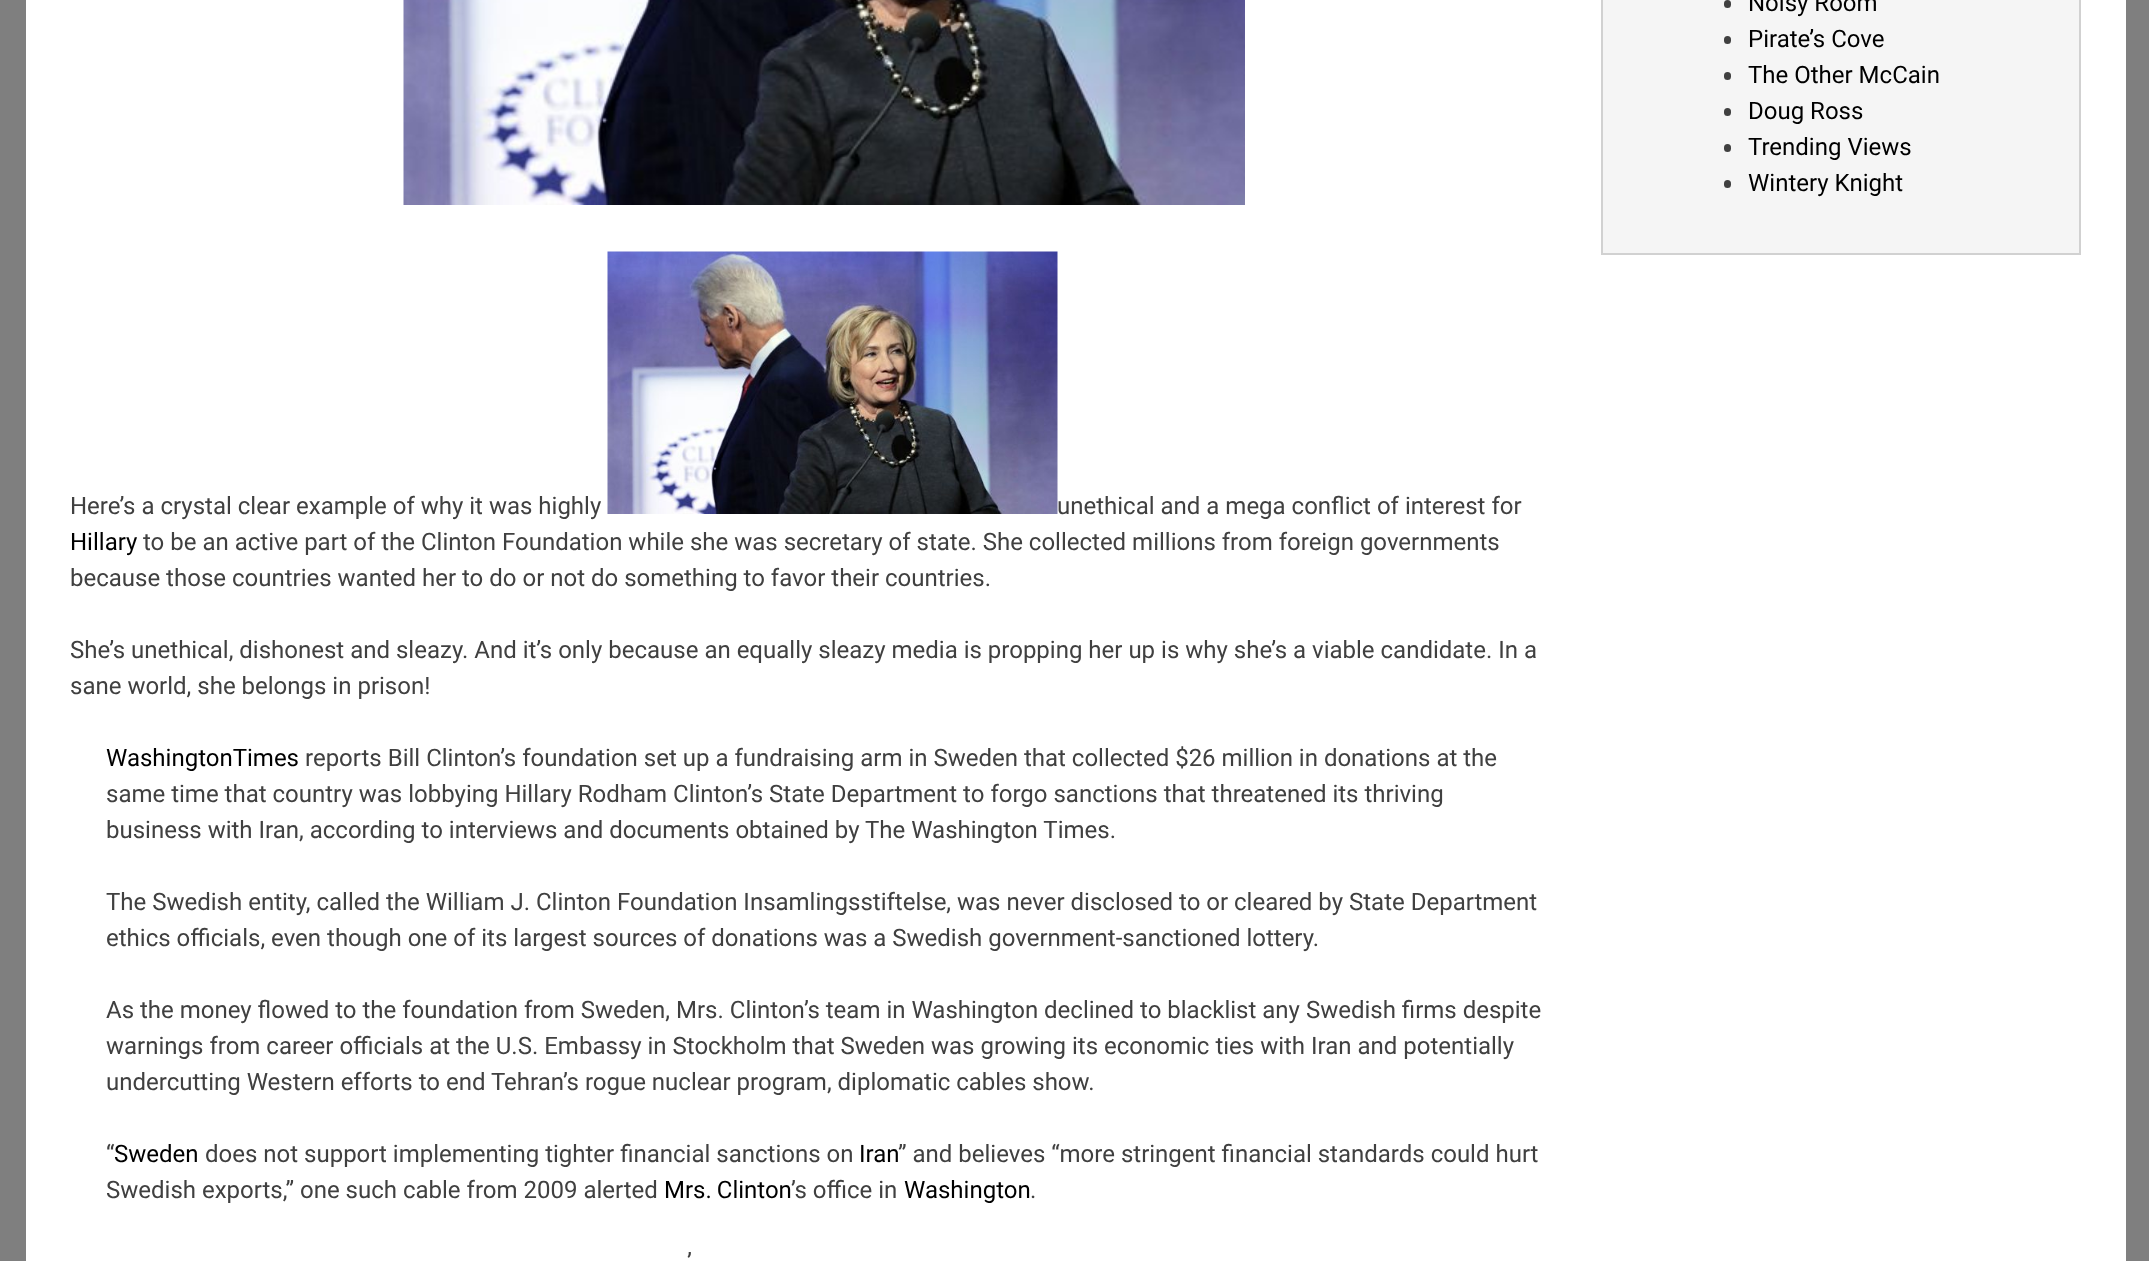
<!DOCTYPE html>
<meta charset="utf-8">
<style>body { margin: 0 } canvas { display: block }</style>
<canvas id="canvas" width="2149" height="1261"></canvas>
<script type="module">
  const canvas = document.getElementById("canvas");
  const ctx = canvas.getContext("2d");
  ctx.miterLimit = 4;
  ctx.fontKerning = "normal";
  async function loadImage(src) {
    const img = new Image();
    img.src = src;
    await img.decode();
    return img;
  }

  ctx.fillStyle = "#7f7f7f";
  ctx.fillRect(0, 0, 2149, 1261);
  ctx.fillStyle = "#ffffff";
  ctx.fillRect(26, 0, 2100, 1261);
  ctx.fillStyle = "#f5f5f5";
  ctx.beginPath();
  ctx.rect(1602, -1, 478, 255);
  ctx.fill();
  ctx.strokeStyle = "#d1d1d1";
  ctx.lineWidth = 2;
  ctx.stroke();
  ctx.fillStyle = "#404040";
  ctx.beginPath();
  ctx.roundRect(1724, 0, 7, 8, 3.5);
  ctx.fill();
  ctx.font = "24px Roboto";
  ctx.fillStyle = "#000000";
  ctx.fillText("Noisy Room", 1748, 11);
  ctx.fillStyle = "#404040";
  ctx.beginPath();
  ctx.roundRect(1724, 36, 7, 8, 3.5);
  ctx.fill();
  ctx.fillStyle = "#000000";
  ctx.fillText("Pirate’s Cove", 1748, 47);
  ctx.fillStyle = "#404040";
  ctx.beginPath();
  ctx.roundRect(1724, 72, 7, 8, 3.5);
  ctx.fill();
  ctx.fillStyle = "#000000";
  ctx.fillText("The Other McCain", 1748, 83);
  ctx.fillStyle = "#404040";
  ctx.beginPath();
  ctx.roundRect(1724, 108, 7, 8, 3.5);
  ctx.fill();
  ctx.fillStyle = "#000000";
  ctx.fillText("Doug Ross", 1748, 119);
  ctx.fillStyle = "#404040";
  ctx.beginPath();
  ctx.roundRect(1724, 144, 7, 8, 3.5);
  ctx.fill();
  ctx.fillStyle = "#000000";
  ctx.fillText("Trending Views", 1748, 155);
  ctx.fillStyle = "#404040";
  ctx.beginPath();
  ctx.roundRect(1724, 180, 7, 8, 3.5);
  ctx.fill();
  ctx.fillStyle = "#000000";
  ctx.fillText("Wintery Knight", 1748, 191);
  ctx.drawImage(await loadImage("img1.png"), 403, 0, 842, 205);
  ctx.fillStyle = "#404040";
  ctx.fillText("Here’s a crystal clear example of why it was highly", 70, 514);
  ctx.drawImage(await loadImage("img2.png"), 607, 251, 451, 263);
  ctx.fillText("unethical and a mega conflict of interest for", 1057, 514);
  ctx.fillStyle = "#000000";
  ctx.fillText("Hillary", 70, 550);
  ctx.fillStyle = "#404040";
  ctx.fillText("to be an active part of the Clinton Foundation while she was secretary of state. She collected millions from foreign governments", 143, 550);
  ctx.fillText("because those countries wanted her to do or not do something to favor their countries.", 70, 586);
  ctx.fillText("She’s unethical, dishonest and sleazy. And it’s only because an equally sleazy media is propping her up is why she’s a viable candidate. In a", 70, 658);
  ctx.fillText("sane world, she belongs in prison!", 70, 694);
  ctx.fillStyle = "#000000";
  ctx.fillText("WashingtonTimes", 106, 766);
  ctx.fillStyle = "#404040";
  ctx.fillText("reports Bill Clinton’s foundation set up a fundraising arm in Sweden that collected $26 million in donations at the", 305, 766);
  ctx.fillText("same time that country was lobbying Hillary Rodham Clinton’s State Department to forgo sanctions that threatened its thriving", 106, 802);
  ctx.fillText("business with Iran, according to interviews and documents obtained by The Washington Times.", 106, 838);
  ctx.fillText("The Swedish entity, called the William J. Clinton Foundation Insamlingsstiftelse, was never disclosed to or cleared by State Department", 106, 910);
  ctx.fillText("ethics officials, even though one of its largest sources of donations was a Swedish government-sanctioned lottery.", 106, 946);
  ctx.fillText("As the money flowed to the foundation from Sweden, Mrs. Clinton’s team in Washington declined to blacklist any Swedish firms despite", 106, 1018);
  ctx.fillText("warnings from career officials at the U.S. Embassy in Stockholm that Sweden was growing its economic ties with Iran and potentially", 106, 1054);
  ctx.fillText("undercutting Western efforts to end Tehran’s rogue nuclear program, diplomatic cables show.", 106, 1090);
  ctx.fillText("“", 106, 1162);
  ctx.fillStyle = "#000000";
  ctx.fillText("Sweden", 114, 1162);
  ctx.fillStyle = "#404040";
  ctx.fillText("does not support implementing tighter financial sanctions on", 205, 1162);
  ctx.fillStyle = "#000000";
  ctx.fillText("Iran", 859, 1162);
  ctx.fillStyle = "#404040";
  ctx.fillText("” and believes “more stringent financial standards could hurt", 898, 1162);
  ctx.fillText("Swedish exports,” one such cable from 2009 alerted", 106, 1198);
  ctx.wordSpacing = "-1px";
  ctx.fillStyle = "#000000";
  ctx.fillText("Mrs. Clinton", 664, 1198);
  ctx.wordSpacing = "0px";
  ctx.fillStyle = "#404040";
  ctx.fillText("’s office in", 791, 1198);
  ctx.fillStyle = "#000000";
  ctx.fillText("Washington", 904, 1198);
  ctx.fillStyle = "#404040";
  ctx.fillText(".", 1030, 1198);
  ctx.fillText("’", 687, 1270);
</script>
